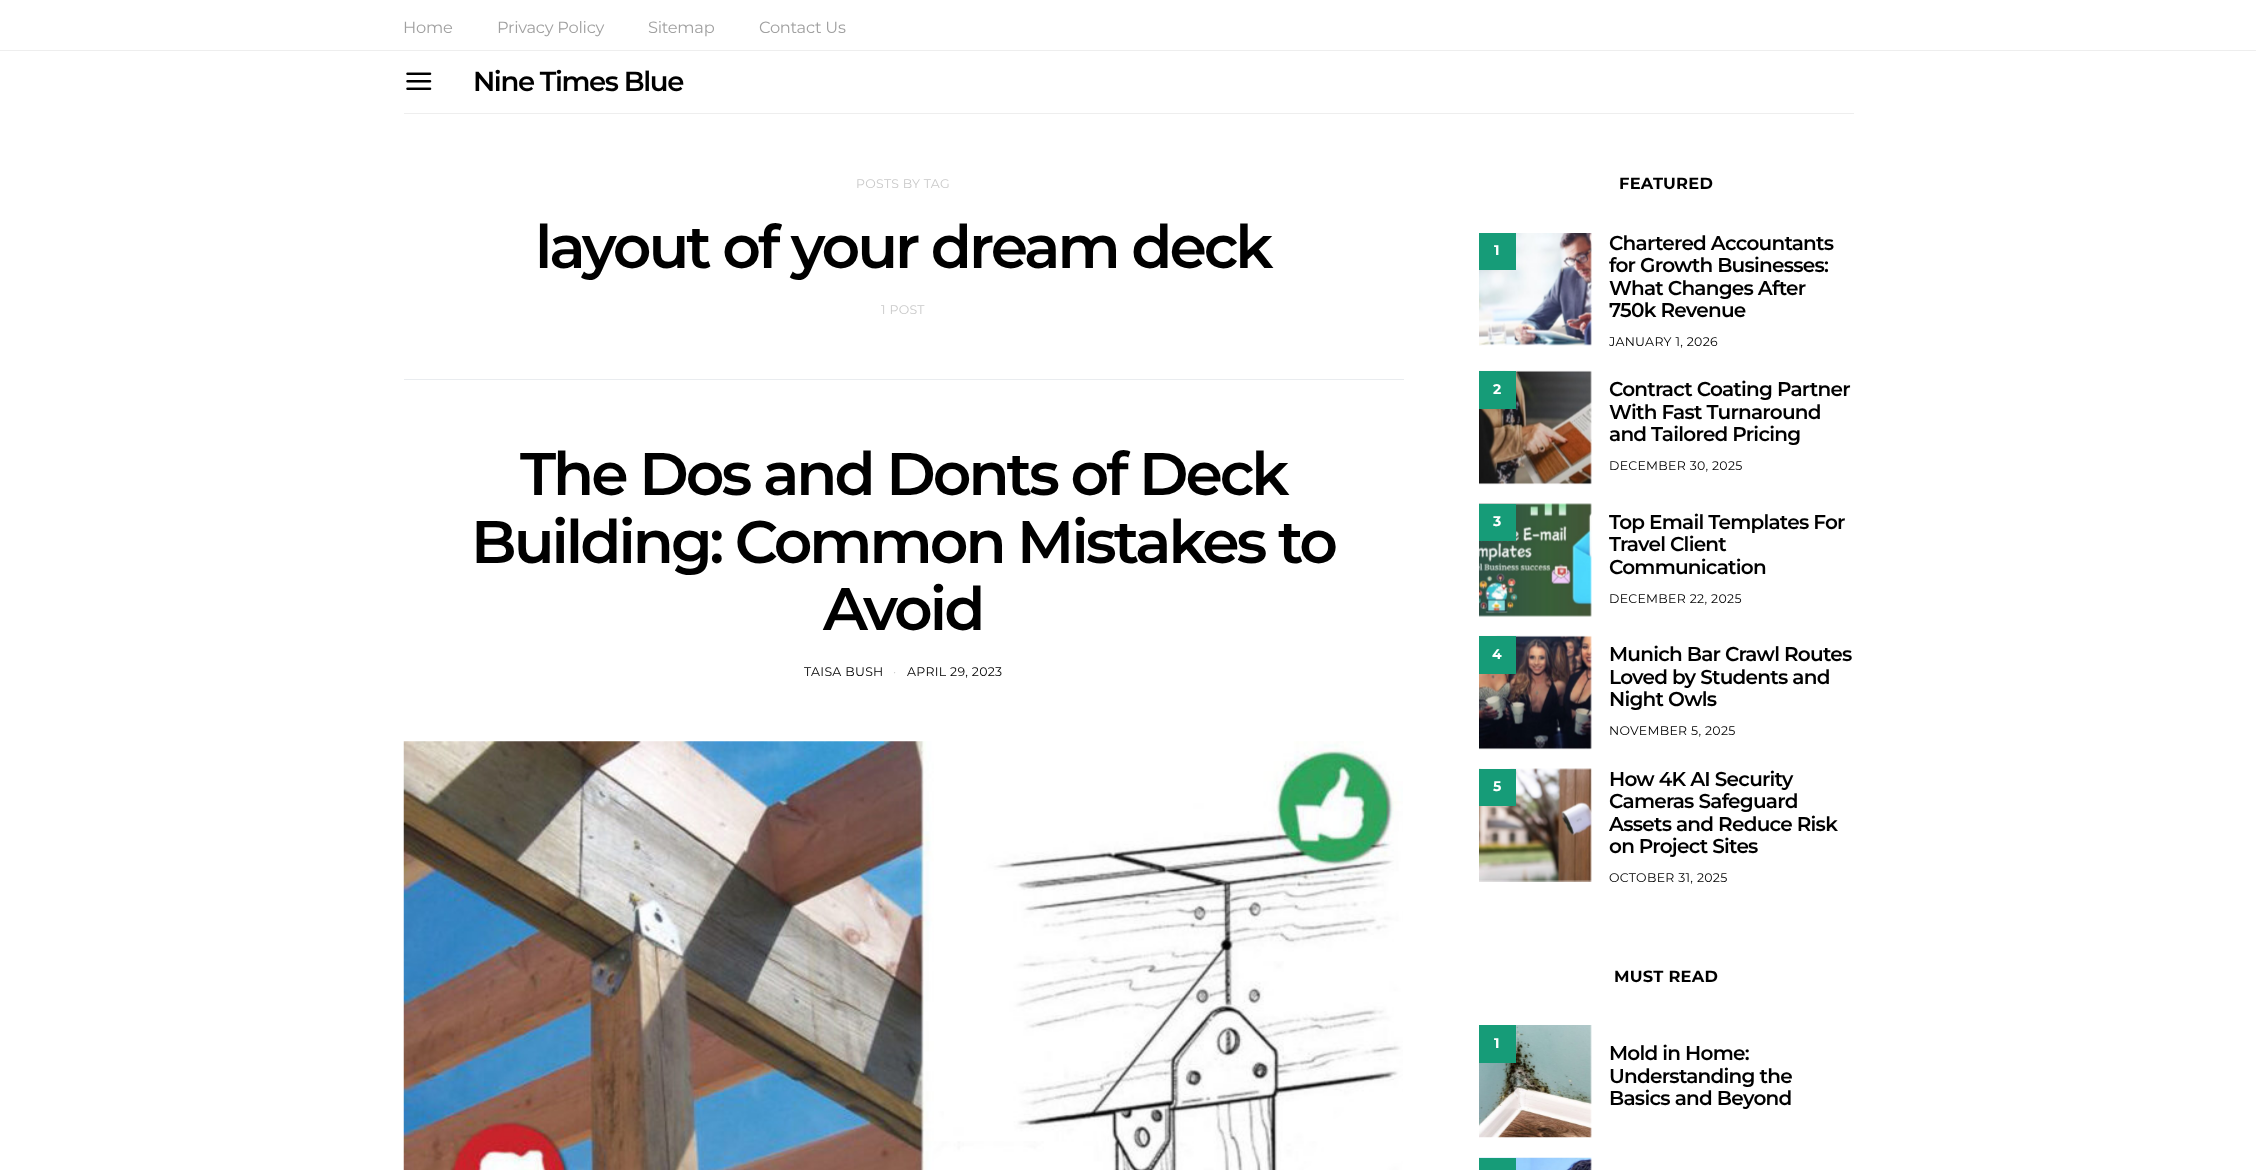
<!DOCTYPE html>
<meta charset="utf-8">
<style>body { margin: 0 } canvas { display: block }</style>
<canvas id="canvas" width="2256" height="1170"></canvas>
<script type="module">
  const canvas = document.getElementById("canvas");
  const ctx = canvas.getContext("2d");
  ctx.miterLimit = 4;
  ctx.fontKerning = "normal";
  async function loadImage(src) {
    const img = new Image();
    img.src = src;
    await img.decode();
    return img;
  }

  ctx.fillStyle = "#ffffff";
  ctx.fillRect(0, 0, 2256, 1170);
  ctx.fillStyle = "#eeeeee";
  ctx.fillRect(0, 50, 2256, 1);
  ctx.letterSpacing = "-0.25px";
  ctx.font = "16.25px Montserrat";
  ctx.fillStyle = "#a0a0a0";
  ctx.fillText("Home", 403, 33);
  ctx.fillText("Privacy Policy", 497, 33);
  ctx.fillText("Sitemap", 648, 33);
  ctx.fillText("Contact Us", 759, 33);
  ctx.fillStyle = "#eeeeee";
  ctx.fillRect(404, 113, 1450, 1);
  ctx.drawImage(await loadImage("img1.png"), 406, 72, 26, 18);
  ctx.letterSpacing = "-1.4px";
  ctx.font = "600 27.5px Montserrat";
  ctx.fillStyle = "#000000";
  ctx.fillText("Nine Times Blue", 473, 91);
  ctx.letterSpacing = "0.3px";
  ctx.font = "12.5px Montserrat";
  ctx.fillStyle = "#c9c9c9";
  ctx.fillText("POSTS BY TAG", 856, 188);
  ctx.letterSpacing = "-3px";
  ctx.font = "600 60px Montserrat";
  ctx.fillStyle = "#000000";
  ctx.fillText("layout of your dream deck", 535, 268);
  ctx.letterSpacing = "0.3px";
  ctx.font = "12.5px Montserrat";
  ctx.fillStyle = "#c9c9c9";
  ctx.fillText("1 POST", 881, 314);
  ctx.fillStyle = "#e9ecef";
  ctx.fillRect(404, 379, 1000, 1);
  ctx.letterSpacing = "-3px";
  ctx.font = "600 60px Montserrat";
  ctx.fillStyle = "#000000";
  ctx.fillText("The Dos and Donts of Deck", 520, 495);
  ctx.fillText("Building: Common Mistakes to", 471, 563);
  ctx.fillText("Avoid", 823, 630);
  ctx.letterSpacing = "0.3px";
  ctx.font = "12.5px Montserrat";
  ctx.fillText("TAISA BUSH", 804, 676);
  ctx.fillStyle = "#c9c9c9";
  ctx.fillText("·", 893, 676);
  ctx.fillStyle = "#000000";
  ctx.fillText("APRIL 29, 2023", 907, 676);
  ctx.drawImage(await loadImage("img2.png"), 403, 741, 1000, 429);
  ctx.letterSpacing = "0.25px";
  ctx.font = "bold 16.25px Montserrat";
  ctx.fillText("FEATURED", 1619, 189);
  ctx.drawImage(await loadImage("img3.png"), 1479, 233, 113, 113);
  ctx.fillStyle = "#169c78";
  ctx.fillRect(1479, 233, 37, 37);
  ctx.letterSpacing = "0px";
  ctx.font = "bold 14px Montserrat";
  ctx.fillStyle = "#ffffff";
  ctx.fillText("1", 1494, 255);
  ctx.letterSpacing = "-0.75px";
  ctx.font = "600 20px Montserrat";
  ctx.fillStyle = "#000000";
  ctx.fillText("Chartered Accountants", 1609, 250);
  ctx.fillText("for Growth Businesses:", 1609, 272);
  ctx.fillText("What Changes After", 1609, 295);
  ctx.fillText("750k Revenue", 1609, 317);
  ctx.letterSpacing = "0.3px";
  ctx.font = "12.5px Montserrat";
  ctx.fillText("JANUARY 1, 2026", 1609, 346);
  ctx.drawImage(await loadImage("img4.png"), 1479, 370, 113, 115);
  ctx.fillStyle = "#169c78";
  ctx.fillRect(1479, 371, 37, 38);
  ctx.letterSpacing = "0px";
  ctx.font = "bold 14px Montserrat";
  ctx.fillStyle = "#ffffff";
  ctx.fillText("2", 1493, 394);
  ctx.letterSpacing = "-0.75px";
  ctx.font = "600 20px Montserrat";
  ctx.fillStyle = "#000000";
  ctx.fillText("Contract Coating Partner", 1609, 396);
  ctx.fillText("With Fast Turnaround", 1609, 419);
  ctx.fillText("and Tailored Pricing", 1609, 441);
  ctx.letterSpacing = "0.3px";
  ctx.font = "12.5px Montserrat";
  ctx.fillText("DECEMBER 30, 2025", 1609, 470);
  ctx.drawImage(await loadImage("img5.png"), 1479, 503, 113, 114);
  ctx.fillStyle = "#169c78";
  ctx.fillRect(1479, 504, 37, 37);
  ctx.letterSpacing = "0px";
  ctx.font = "bold 14px Montserrat";
  ctx.fillStyle = "#ffffff";
  ctx.fillText("3", 1493, 526);
  ctx.letterSpacing = "-0.75px";
  ctx.font = "600 20px Montserrat";
  ctx.fillStyle = "#000000";
  ctx.fillText("Top Email Templates For", 1609, 529);
  ctx.fillText("Travel Client", 1609, 551);
  ctx.fillText("Communication", 1609, 574);
  ctx.letterSpacing = "0.3px";
  ctx.font = "12.5px Montserrat";
  ctx.fillText("DECEMBER 22, 2025", 1609, 603);
  ctx.drawImage(await loadImage("img6.png"), 1479, 635, 113, 115);
  ctx.fillStyle = "#169c78";
  ctx.fillRect(1479, 636, 37, 38);
  ctx.letterSpacing = "0px";
  ctx.font = "bold 14px Montserrat";
  ctx.fillStyle = "#ffffff";
  ctx.fillText("4", 1492, 659);
  ctx.letterSpacing = "-0.75px";
  ctx.font = "600 20px Montserrat";
  ctx.fillStyle = "#000000";
  ctx.fillText("Munich Bar Crawl Routes", 1609, 661);
  ctx.fillText("Loved by Students and", 1609, 684);
  ctx.fillText("Night Owls", 1609, 706);
  ctx.letterSpacing = "0.3px";
  ctx.font = "12.5px Montserrat";
  ctx.fillText("NOVEMBER 5, 2025", 1609, 735);
  ctx.drawImage(await loadImage("img7.png"), 1479, 768, 113, 114);
  ctx.fillStyle = "#169c78";
  ctx.fillRect(1479, 769, 37, 37);
  ctx.letterSpacing = "0px";
  ctx.font = "bold 14px Montserrat";
  ctx.fillStyle = "#ffffff";
  ctx.fillText("5", 1493, 791);
  ctx.letterSpacing = "-0.75px";
  ctx.font = "600 20px Montserrat";
  ctx.fillStyle = "#000000";
  ctx.fillText("How 4K AI Security", 1609, 786);
  ctx.fillText("Cameras Safeguard", 1609, 808);
  ctx.fillText("Assets and Reduce Risk", 1609, 831);
  ctx.fillText("on Project Sites", 1609, 853);
  ctx.letterSpacing = "0.3px";
  ctx.font = "12.5px Montserrat";
  ctx.fillText("OCTOBER 31, 2025", 1609, 882);
  ctx.letterSpacing = "0.25px";
  ctx.font = "bold 16.25px Montserrat";
  ctx.fillText("MUST READ", 1614, 982);
  ctx.drawImage(await loadImage("img8.png"), 1479, 1025, 113, 113);
  ctx.fillStyle = "#169c78";
  ctx.fillRect(1479, 1025, 37, 38);
  ctx.letterSpacing = "0px";
  ctx.font = "bold 14px Montserrat";
  ctx.fillStyle = "#ffffff";
  ctx.fillText("1", 1494, 1048);
  ctx.letterSpacing = "-0.75px";
  ctx.font = "600 20px Montserrat";
  ctx.fillStyle = "#000000";
  ctx.fillText("Mold in Home:", 1609, 1060);
  ctx.fillText("Understanding the", 1609, 1083);
  ctx.fillText("Basics and Beyond", 1609, 1105);
  ctx.drawImage(await loadImage("img9.png"), 1479, 1157, 113, 13);
  ctx.fillStyle = "#169c78";
  ctx.fillRect(1479, 1158, 37, 12);
</script>
